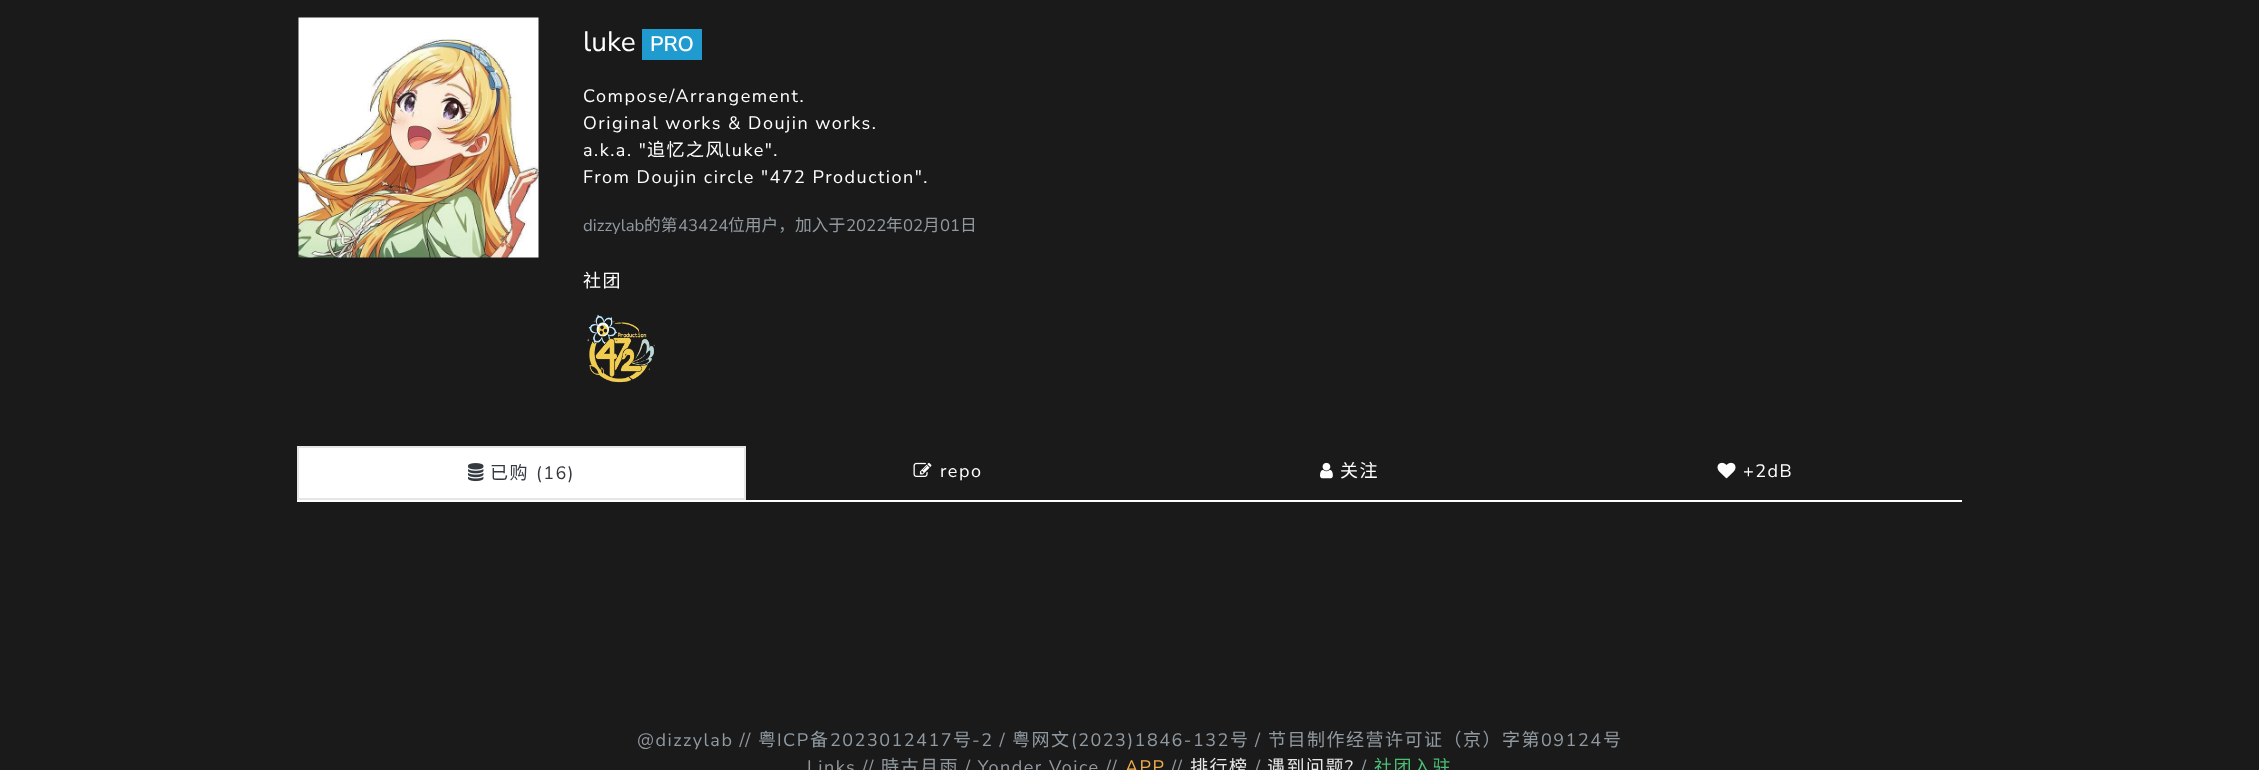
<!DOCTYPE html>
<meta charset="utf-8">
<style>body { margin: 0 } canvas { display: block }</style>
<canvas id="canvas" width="2259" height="770"></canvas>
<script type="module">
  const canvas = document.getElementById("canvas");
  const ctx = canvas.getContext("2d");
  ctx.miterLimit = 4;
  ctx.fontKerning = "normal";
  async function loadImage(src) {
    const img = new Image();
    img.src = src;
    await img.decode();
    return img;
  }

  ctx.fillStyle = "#1a1a1a";
  ctx.fillRect(0, 0, 2259, 770);
  ctx.drawImage(await loadImage("img1.png"), 298, 17, 241, 241);
  ctx.font = "28px Nunito Sans";
  ctx.fillStyle = "#ffffff";
  ctx.fillText("luke", 583, 51);
  ctx.fillStyle = "#1f9bcf";
  ctx.fillRect(642, 29, 60, 31);
  ctx.font = "600 21px Nunito Sans";
  ctx.fillStyle = "#ffffff";
  ctx.fillText("PRO", 650, 51);
  ctx.letterSpacing = "1.5px";
  ctx.font = "18px Nunito Sans";
  ctx.fillText("Compose/Arrangement.", 583, 102);
  ctx.fillText("Original works & Doujin works.", 583, 129);
  ctx.fillText("a.k.a. \"", 583, 156);
  ctx.font = "18px Noto Sans CJK SC";
  ctx.fillText("追忆之风", 647, 156);
  ctx.font = "18px Nunito Sans";
  ctx.fillText("luke\".", 725, 156);
  ctx.fillText("From Doujin circle \"472 Production\".", 583, 183);
  ctx.letterSpacing = "0px";
  ctx.font = "16.75px Nunito Sans";
  ctx.fillStyle = "#919aa1";
  ctx.fillText("dizzylab", 583, 231);
  ctx.font = "16.75px Noto Sans CJK SC";
  ctx.fillText("的第", 644, 231);
  ctx.font = "16.75px Nunito Sans";
  ctx.fillText("43424", 678, 231);
  ctx.font = "16.75px Noto Sans CJK SC";
  ctx.fillText("位用户，加入于", 728, 231);
  ctx.font = "16.75px Nunito Sans";
  ctx.fillText("2022", 846, 231);
  ctx.font = "16.75px Noto Sans CJK SC";
  ctx.fillText("年", 886, 231);
  ctx.font = "16.75px Nunito Sans";
  ctx.fillText("02", 903, 231);
  ctx.font = "16.75px Noto Sans CJK SC";
  ctx.fillText("月", 923, 231);
  ctx.font = "16.75px Nunito Sans";
  ctx.fillText("01", 940, 231);
  ctx.font = "16.75px Noto Sans CJK SC";
  ctx.fillText("日", 960, 231);
  ctx.letterSpacing = "1.5px";
  ctx.font = "18px Noto Sans CJK SC";
  ctx.fillStyle = "#ffffff";
  ctx.fillText("社团", 583, 287);
  ctx.drawImage(await loadImage("img2.png"), 587, 314, 68, 69);
  ctx.fillRect(297, 500, 1665, 2);
  ctx.beginPath();
  ctx.rect(298, 447, 447, 52);
  ctx.fill();
  ctx.strokeStyle = "#e6e6e6";
  ctx.lineWidth = 2;
  ctx.stroke();
  ctx.drawImage(await loadImage("img3.png"), 468, 463, 16, 19);
  ctx.fillStyle = "#343a40";
  ctx.fillText("已购", 490, 479);
  ctx.font = "18px Nunito Sans";
  ctx.fillText("(16)", 536, 479);
  ctx.drawImage(await loadImage("img4.png"), 913, 462, 19, 15);
  ctx.fillStyle = "#ffffff";
  ctx.fillText("repo", 940, 477);
  ctx.drawImage(await loadImage("img5.png"), 1320, 462, 13, 17);
  ctx.font = "18px Noto Sans CJK SC";
  ctx.fillText("关注", 1340, 477);
  ctx.drawImage(await loadImage("img6.png"), 1717, 462, 19, 17);
  ctx.font = "18px Nunito Sans";
  ctx.fillText("+2dB", 1743, 477);
  ctx.fillStyle = "#919aa1";
  ctx.fillText("@dizzylab //", 637, 746);
  ctx.font = "18px Noto Sans CJK SC";
  ctx.fillText("粤", 758, 746);
  ctx.font = "18px Nunito Sans";
  ctx.fillText("ICP", 777, 746);
  ctx.font = "18px Noto Sans CJK SC";
  ctx.fillText("备", 810, 746);
  ctx.font = "18px Nunito Sans";
  ctx.fillText("2023012417", 830, 746);
  ctx.font = "18px Noto Sans CJK SC";
  ctx.fillText("号", 953, 746);
  ctx.font = "18px Nunito Sans";
  ctx.fillText("-2 /", 972, 746);
  ctx.font = "18px Noto Sans CJK SC";
  ctx.fillText("粤网文", 1012, 746);
  ctx.font = "18px Nunito Sans";
  ctx.fillText("(2023)1846-132", 1071, 746);
  ctx.font = "18px Noto Sans CJK SC";
  ctx.fillText("号", 1230, 746);
  ctx.font = "18px Nunito Sans";
  ctx.fillText("/", 1255, 746);
  ctx.font = "18px Noto Sans CJK SC";
  ctx.fillText("节目制作经营许可证（京）字第", 1268, 746);
  ctx.font = "18px Nunito Sans";
  ctx.fillText("09124", 1541, 746);
  ctx.font = "18px Noto Sans CJK SC";
  ctx.fillText("号", 1603, 746);
  ctx.font = "18px Nunito Sans";
  ctx.fillText("Links //", 807, 773);
  ctx.font = "18px Noto Sans CJK SC";
  ctx.fillText("時古月雨", 881, 773);
  ctx.font = "18px Nunito Sans";
  ctx.fillText("/ Yonder Voice //", 965, 773);
  ctx.fillStyle = "#f0ad4e";
  ctx.fillText("APP", 1125, 773);
  ctx.fillStyle = "#919aa1";
  ctx.fillText("//", 1171, 773);
  ctx.font = "18px Noto Sans CJK SC";
  ctx.fillStyle = "#e7e7e7";
  ctx.fillText("排行榜", 1190, 773);
  ctx.font = "18px Nunito Sans";
  ctx.fillStyle = "#919aa1";
  ctx.fillText("/", 1255, 773);
  ctx.font = "18px Noto Sans CJK SC";
  ctx.fillStyle = "#e7e7e7";
  ctx.fillText("遇到问题", 1267, 773);
  ctx.font = "18px Nunito Sans";
  ctx.fillText("?", 1345, 773);
  ctx.fillStyle = "#919aa1";
  ctx.fillText("/", 1361, 773);
  ctx.font = "18px Noto Sans CJK SC";
  ctx.fillStyle = "#4bbf73";
  ctx.fillText("社团入驻", 1374, 773);
</script>
